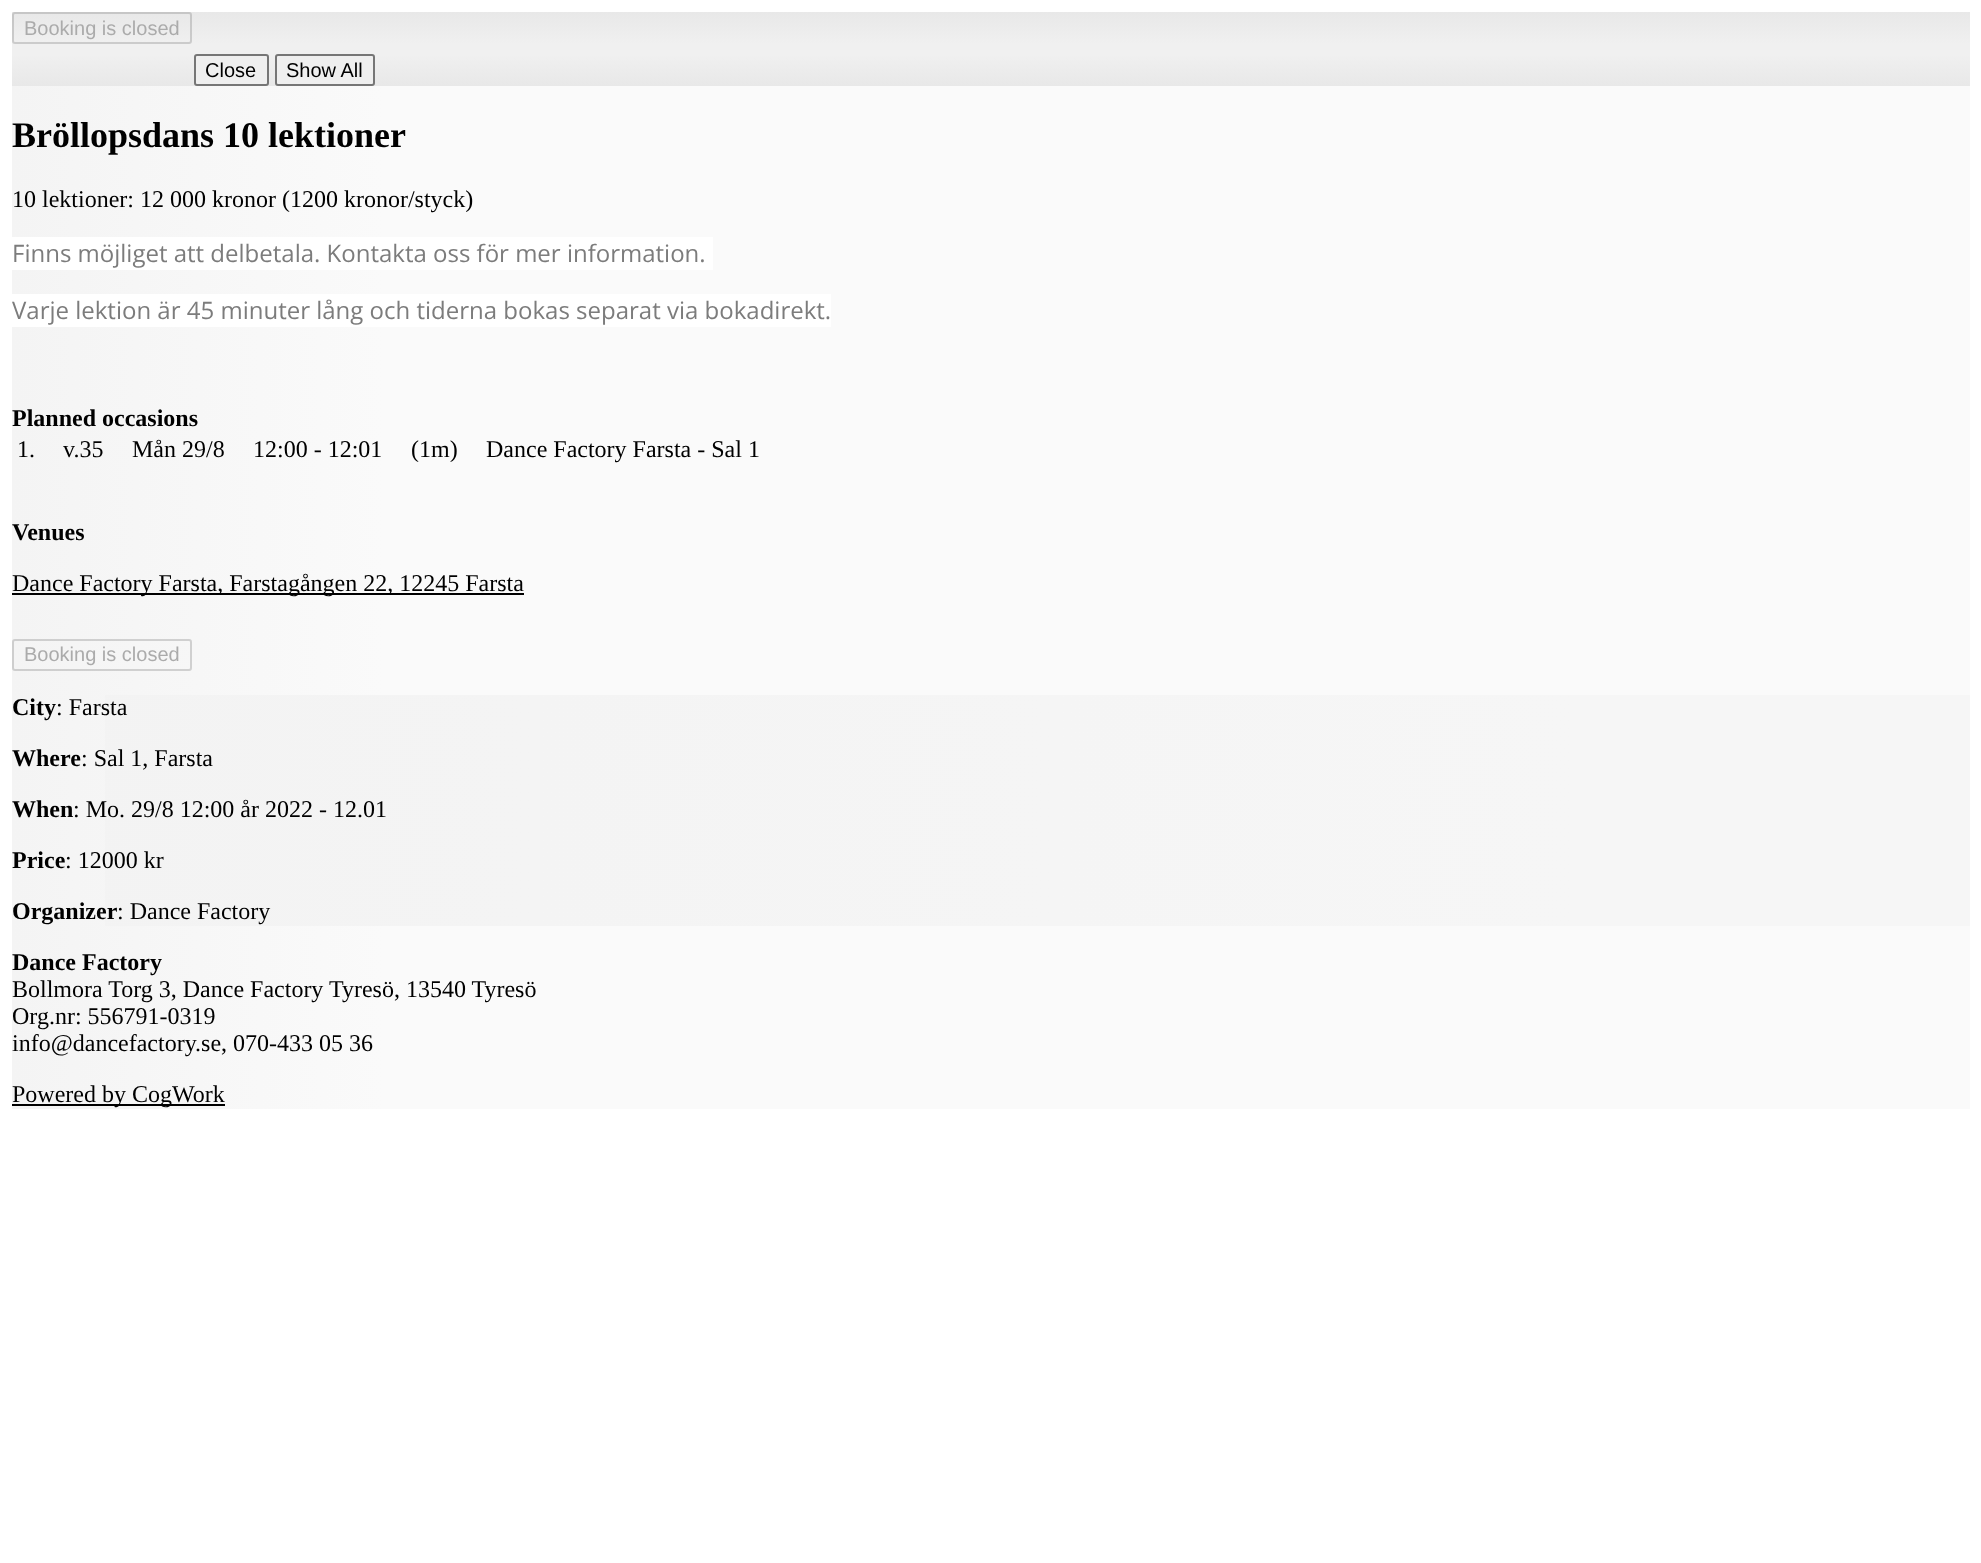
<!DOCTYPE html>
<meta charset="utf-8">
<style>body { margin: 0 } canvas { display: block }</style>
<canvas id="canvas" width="1981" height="1563"></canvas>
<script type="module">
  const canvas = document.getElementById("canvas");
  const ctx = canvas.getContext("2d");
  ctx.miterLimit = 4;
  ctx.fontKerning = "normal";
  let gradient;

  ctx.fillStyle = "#ffffff";
  ctx.fillRect(0, 0, 1981, 1563);
  gradient = ctx.createLinearGradient(12, 560, 1970, 560);
  gradient.addColorStop(0, "#f4f4f4");
  gradient.addColorStop(0.19, "#fafafa");
  ctx.fillStyle = gradient;
  ctx.fillRect(12, 86, 1958, 1023);
  gradient = ctx.createLinearGradient(991, 12, 991, 86);
  gradient.addColorStop(0, "#e8e8e8");
  gradient.addColorStop(0.43, "#f0f0f0");
  gradient.addColorStop(0.57, "#f0f0f0");
  gradient.addColorStop(1, "#e8e8e8");
  ctx.fillStyle = gradient;
  ctx.fillRect(12, 12, 1958, 74);
  ctx.beginPath();
  ctx.roundRect(13, 13, 178, 30, 2);
  ctx.strokeStyle = "rgba(118, 118, 118, 0.3)";
  ctx.lineWidth = 2;
  ctx.stroke();
  ctx.font = "20px Liberation Sans";
  ctx.fillStyle = "#ababab";
  ctx.fillText("Booking is closed", 24, 35);
  ctx.fillStyle = "#efefef";
  ctx.beginPath();
  ctx.roundRect(195, 55, 73, 30, 2);
  ctx.fill();
  ctx.strokeStyle = "#767676";
  ctx.stroke();
  ctx.fillStyle = "#000000";
  ctx.fillText("Close", 205, 77);
  ctx.fillStyle = "#efefef";
  ctx.beginPath();
  ctx.roundRect(276, 55, 98, 30, 2);
  ctx.fill();
  ctx.stroke();
  ctx.fillStyle = "#000000";
  ctx.fillText("Show All", 286, 77);
  ctx.font = "bold 36px Liberation Serif";
  ctx.fillText("Bröllopsdans 10 lektioner", 12, 147);
  ctx.font = "24px Liberation Serif";
  ctx.fillText("10 lektioner: 12 000 kronor (1200 kronor/styck)", 12, 207);
  ctx.fillStyle = "#ffffff";
  ctx.fillRect(12, 237, 701, 33);
  ctx.font = "24px Open Sans";
  ctx.fillStyle = "#7c7c7c";
  ctx.fillText("Finns möjliget att delbetala. Kontakta oss för mer information.", 12, 262);
  ctx.fillStyle = "#ffffff";
  ctx.fillRect(12, 294, 819, 33);
  ctx.fillStyle = "#7c7c7c";
  ctx.fillText("Varje lektion är 45 minuter lång och tiderna bokas separat via bokadirekt.", 12, 319);
  ctx.font = "bold 24px Liberation Serif";
  ctx.fillStyle = "#000000";
  ctx.fillText("Planned occasions", 12, 426);
  ctx.font = "24px Liberation Serif";
  ctx.fillText("1.", 17, 457);
  ctx.fillText("v.35", 63, 457);
  ctx.fillText("Mån 29/8", 132, 457);
  ctx.fillText("12:00 - 12:01", 253, 457);
  ctx.fillText("(1m)", 411, 457);
  ctx.fillText("Dance Factory Farsta - Sal 1", 486, 457);
  ctx.font = "bold 24px Liberation Serif";
  ctx.fillText("Venues", 12, 540);
  ctx.fillRect(12, 593, 512, 2);
  ctx.font = "24px Liberation Serif";
  ctx.fillText("Dance Factory Farsta, Farstagången 22, 12245 Farsta", 12, 591);
  ctx.beginPath();
  ctx.roundRect(13, 640, 178, 30, 2);
  ctx.strokeStyle = "rgba(118, 118, 118, 0.3)";
  ctx.stroke();
  ctx.font = "20px Liberation Sans";
  ctx.fillStyle = "#ababab";
  ctx.fillText("Booking is closed", 24, 661);
  gradient = ctx.createLinearGradient(12, 810, 1970, 810);
  gradient.addColorStop(0, "#f3f3f3");
  gradient.addColorStop(0.8, "#f6f6f6");
  ctx.fillStyle = gradient;
  ctx.fillRect(105, 695, 1865, 231);
  ctx.font = "bold 24px Liberation Serif";
  ctx.fillStyle = "#000000";
  ctx.fillText("City", 12, 715);
  ctx.font = "24px Liberation Serif";
  ctx.fillText(": Farsta", 56, 715);
  ctx.font = "bold 24px Liberation Serif";
  ctx.fillText("Where", 12, 766);
  ctx.font = "24px Liberation Serif";
  ctx.fillText(": Sal 1, Farsta", 81, 766);
  ctx.font = "bold 24px Liberation Serif";
  ctx.fillText("When", 12, 817);
  ctx.font = "24px Liberation Serif";
  ctx.fillText(": Mo. 29/8 12:00 år 2022 - 12.01", 73, 817);
  ctx.font = "bold 24px Liberation Serif";
  ctx.fillText("Price", 12, 868);
  ctx.font = "24px Liberation Serif";
  ctx.fillText(": 12000 kr", 65, 868);
  ctx.font = "bold 24px Liberation Serif";
  ctx.fillText("Organizer", 12, 919);
  ctx.font = "24px Liberation Serif";
  ctx.fillText(": Dance Factory", 117, 919);
  ctx.font = "bold 24px Liberation Serif";
  ctx.fillText("Dance Factory", 12, 970);
  ctx.font = "24px Liberation Serif";
  ctx.fillText("Bollmora Torg 3, Dance Factory Tyresö, 13540 Tyresö", 12, 997);
  ctx.fillText("Org.nr: 556791-0319", 12, 1024);
  ctx.fillText("info@dancefactory.se, 070-433 05 36", 12, 1051);
  ctx.fillRect(12, 1104, 213, 2);
  ctx.fillText("Powered by CogWork", 12, 1102);
</script>
